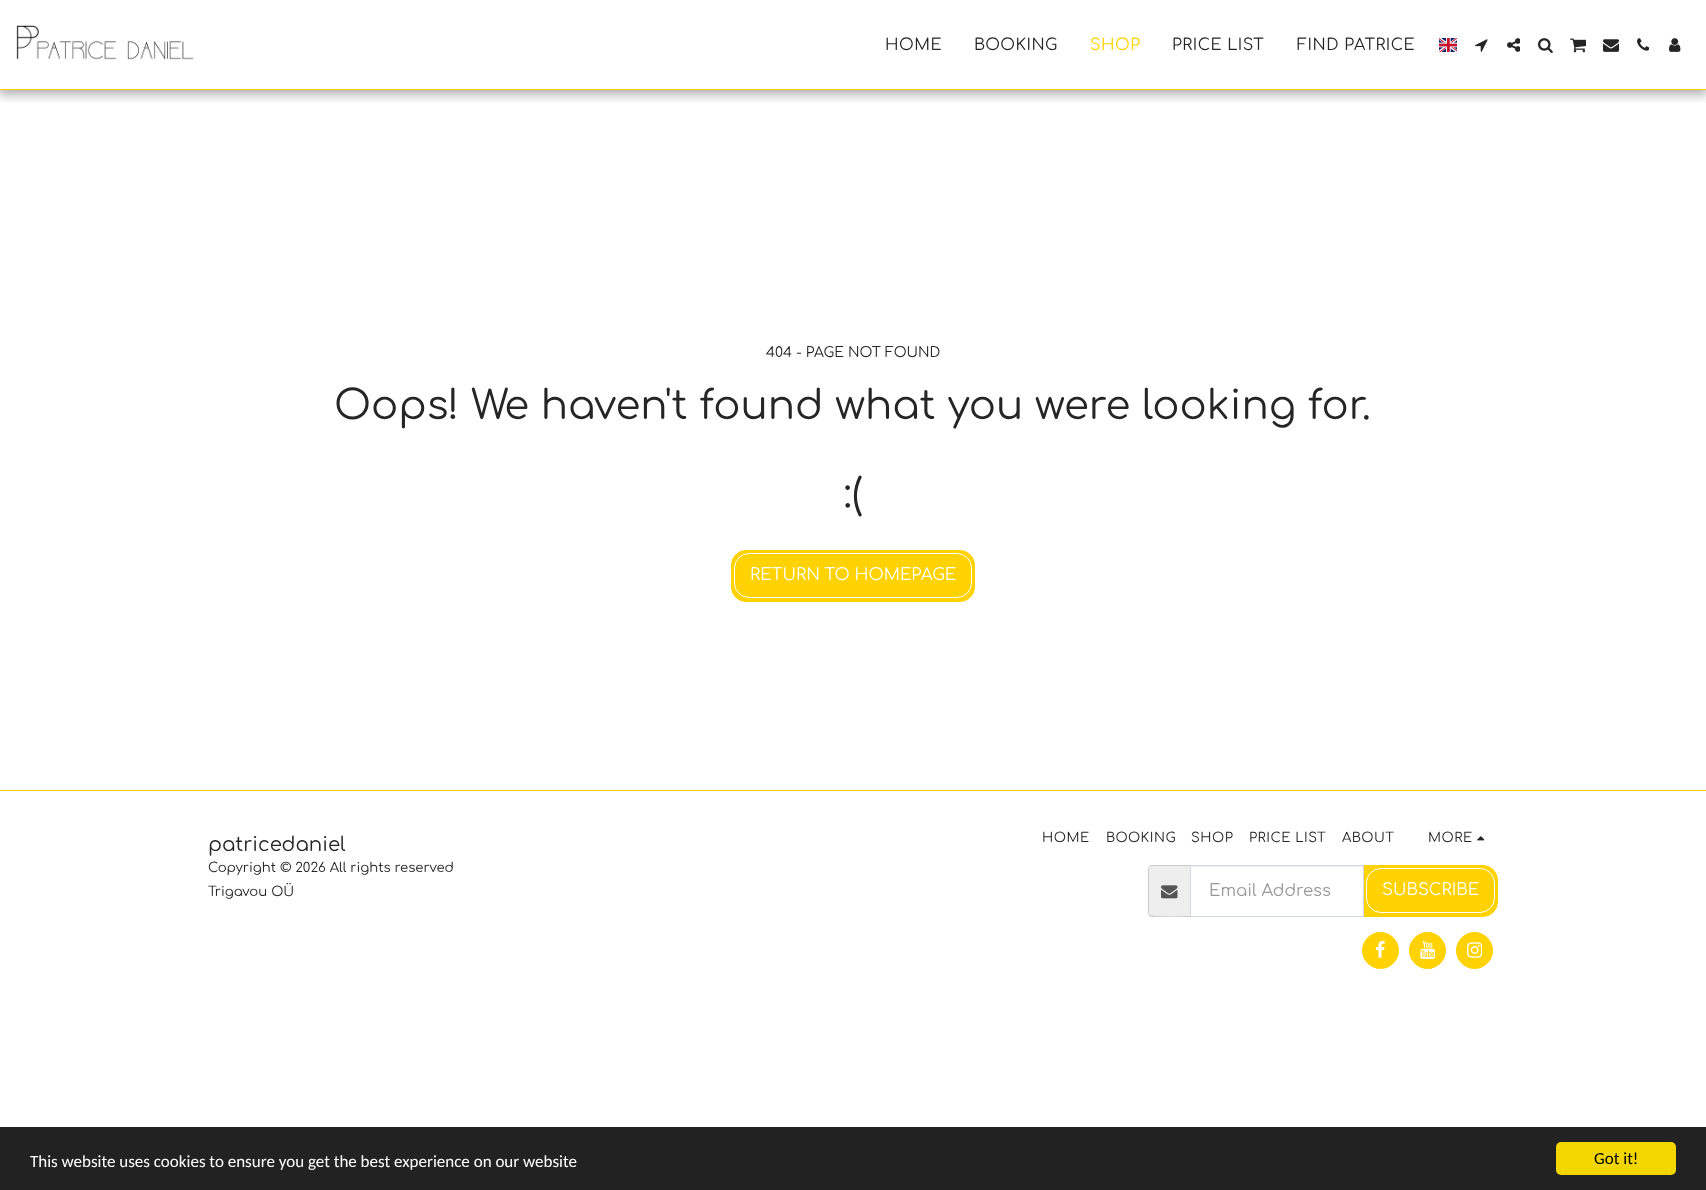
<!DOCTYPE html>
<meta charset="utf-8">
<style>body { margin: 0 } canvas { display: block }</style>
<canvas id="canvas" width="1706" height="1190"></canvas>
<script type="module">
  const canvas = document.getElementById("canvas");
  const ctx = canvas.getContext("2d");
  ctx.miterLimit = 4;
  ctx.fontKerning = "normal";
  async function loadImage(src) {
    const img = new Image();
    img.src = src;
    await img.decode();
    return img;
  }

  ctx.fillStyle = "#ffffff";
  ctx.fillRect(0, 0, 1706, 1190);
  ctx.save();
  ctx.beginPath();
  ctx.rect(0, 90, 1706, 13);
  ctx.clip();
  ctx.fillStyle = "rgba(0, 0, 0, 0.35)";
  ctx.filter = "blur(6px)";
  ctx.beginPath();
  ctx.rect(-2, 0, 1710, 94);
  ctx.fill();
  ctx.filter = "none";
  ctx.restore();
  ctx.fillStyle = "#ffd200";
  ctx.fillRect(0, 89, 1706, 1);
  ctx.drawImage(await loadImage("img1.png"), 16, 25, 178, 35);
  ctx.letterSpacing = "0.5px";
  ctx.font = "16px Comfortaa";
  ctx.fillStyle = "#252525";
  ctx.fillText("HOME", 885, 50);
  ctx.fillText("BOOKING", 974, 50);
  ctx.fillStyle = "#ffd200";
  ctx.fillText("SHOP", 1090, 50);
  ctx.fillStyle = "#252525";
  ctx.fillText("PRICE LIST", 1172, 50);
  ctx.fillText("FIND PATRICE", 1297, 50);
  ctx.drawImage(await loadImage("img2.png"), 1439, 38, 18, 14);
  ctx.drawImage(await loadImage("img3.png"), 1475, 39, 13, 13);
  ctx.drawImage(await loadImage("img4.png"), 1507, 38, 13, 14);
  ctx.drawImage(await loadImage("img5.png"), 1538, 38, 15, 15);
  ctx.drawImage(await loadImage("img6.png"), 1570, 38, 16, 15);
  ctx.drawImage(await loadImage("img7.png"), 1603, 39, 16, 13);
  ctx.drawImage(await loadImage("img8.png"), 1637, 38, 12, 13);
  ctx.drawImage(await loadImage("img9.png"), 1669, 38, 12, 14);
  ctx.letterSpacing = "0px";
  ctx.font = "14px Comfortaa";
  ctx.fillText("404 - PAGE NOT FOUND", 766, 357);
  ctx.font = "40.25px Comfortaa";
  ctx.fillText("Oops! We haven't found what you were looking for.", 334, 419);
  ctx.fillText(":(", 844, 507);
  ctx.fillStyle = "#ffd200";
  ctx.beginPath();
  ctx.roundRect(731.5, 550.5, 243, 51, 14.5);
  ctx.fill();
  ctx.strokeStyle = "#ffd200";
  ctx.stroke();
  ctx.beginPath();
  ctx.roundRect(734.5, 553.5, 237, 44, 14.5);
  ctx.strokeStyle = "#ffffff";
  ctx.stroke();
  ctx.font = "16.5px Comfortaa";
  ctx.fillStyle = "#ffffff";
  ctx.fillText("RETURN TO HOMEPAGE", 750, 580);
  ctx.fillStyle = "#ffd200";
  ctx.fillRect(0, 790, 1706, 1);
  ctx.font = "19.75px Comfortaa";
  ctx.fillStyle = "#252525";
  ctx.fillText("patricedaniel", 208, 851);
  ctx.font = "13.25px Comfortaa";
  ctx.fillText("Copyright © 2026 All rights reserved", 208, 872);
  ctx.fillText("Trigavou OÜ", 208, 896);
  ctx.letterSpacing = "0.5px";
  ctx.fillText("HOME", 1042, 842);
  ctx.fillText("BOOKING", 1106, 842);
  ctx.fillText("SHOP", 1191, 842);
  ctx.fillText("PRICE LIST", 1249, 842);
  ctx.fillText("ABOUT", 1342, 842);
  ctx.fillText("MORE", 1428, 842);
  ctx.drawImage(await loadImage("img10.png"), 1477, 836, 7, 5);
  ctx.fillStyle = "#eeeeee";
  ctx.beginPath();
  ctx.roundRect(1149, 866, 41, 50, [3, 0, 0, 3]);
  ctx.fill();
  ctx.fillStyle = "#cccccc";
  ctx.beginPath();
  ctx.moveTo(1152, 865);
  ctx.lineTo(1190, 865);
  ctx.lineTo(1190, 917);
  ctx.lineTo(1152, 917);
  ctx.bezierCurveTo(1150, 917, 1148, 915, 1148, 913);
  ctx.lineTo(1148, 869);
  ctx.bezierCurveTo(1148, 867, 1150, 865, 1152, 865);
  ctx.closePath();
  ctx.moveTo(1152, 866);
  ctx.lineTo(1190, 866);
  ctx.lineTo(1190, 916);
  ctx.bezierCurveTo(1185, 916, 1152, 917, 1150, 915);
  ctx.lineTo(1149, 914);
  ctx.lineTo(1149, 868);
  ctx.lineTo(1150, 867);
  ctx.closePath();
  ctx.fill("evenodd");
  ctx.drawImage(await loadImage("img11.png"), 1161, 885, 17, 14);
  ctx.fillStyle = "#ececec";
  ctx.fillRect(1191, 866, 172, 1);
  ctx.fillStyle = "#ffd200";
  ctx.beginPath();
  ctx.roundRect(1363.5, 865.5, 134, 51, [0, 14.5, 14.5, 0]);
  ctx.fill();
  ctx.strokeStyle = "#ffd200";
  ctx.stroke();
  ctx.strokeStyle = "#d4d7e5";
  ctx.strokeRect(1190.5, 865.5, 173, 51);
  ctx.letterSpacing = "0px";
  ctx.font = "16.5px Comfortaa";
  ctx.fillStyle = "#999999";
  ctx.fillText("Email Address", 1209, 896);
  ctx.beginPath();
  ctx.roundRect(1366.5, 868.5, 128, 44, 14.5);
  ctx.strokeStyle = "#ffffff";
  ctx.stroke();
  ctx.fillStyle = "#ffffff";
  ctx.fillText("SUBSCRIBE", 1382, 895);
  ctx.fillStyle = "#ffd200";
  ctx.beginPath();
  ctx.arc(1380.5, 950.5, 18, 0, Math.PI * 2);
  ctx.fill();
  ctx.strokeStyle = "#ffd200";
  ctx.stroke();
  ctx.drawImage(await loadImage("img12.png"), 1375, 941, 10, 17);
  ctx.beginPath();
  ctx.arc(1427.5, 950.5, 18, 0, Math.PI * 2);
  ctx.fill();
  ctx.stroke();
  ctx.drawImage(await loadImage("img13.png"), 1420, 941, 15, 18);
  ctx.beginPath();
  ctx.arc(1474.5, 950.5, 18, 0, Math.PI * 2);
  ctx.fill();
  ctx.stroke();
  ctx.drawImage(await loadImage("img14.png"), 1467, 942, 15, 16);
  ctx.fillStyle = "#222222";
  ctx.fillRect(0, 1127, 1706, 63);
  ctx.font = "17px Carlito";
  ctx.fillStyle = "#ffffff";
  ctx.fillText("This website uses cookies to ensure you get the best experience on our website", 30, 1167);
  ctx.fillStyle = "#f1d600";
  ctx.beginPath();
  ctx.roundRect(1556, 1142, 120, 33, 5);
  ctx.fill();
  ctx.fillStyle = "#000000";
  ctx.fillText("Got it!", 1594, 1164);
</script>
